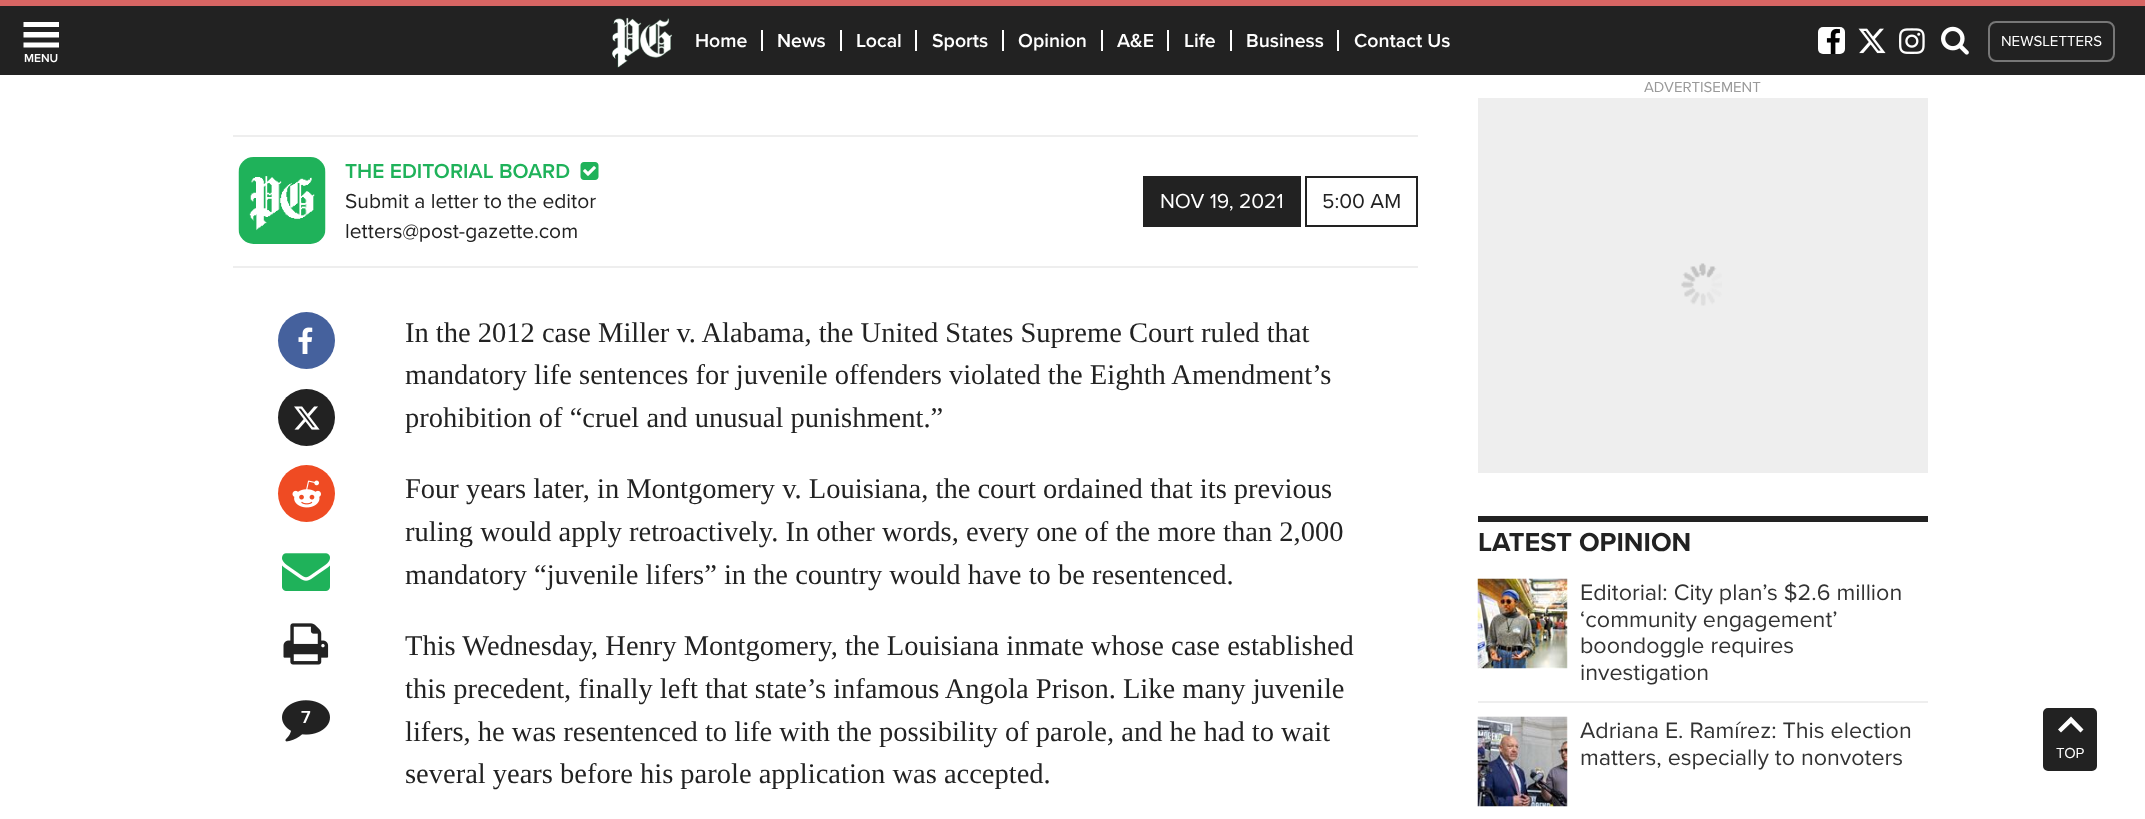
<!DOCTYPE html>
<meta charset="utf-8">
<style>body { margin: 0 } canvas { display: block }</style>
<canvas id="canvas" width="2145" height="819"></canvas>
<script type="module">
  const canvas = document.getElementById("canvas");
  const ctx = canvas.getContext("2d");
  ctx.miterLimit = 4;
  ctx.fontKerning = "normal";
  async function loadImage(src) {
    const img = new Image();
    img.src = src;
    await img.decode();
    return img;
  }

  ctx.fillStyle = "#ffffff";
  ctx.fillRect(0, 0, 2145, 819);
  ctx.fillStyle = "#222222";
  ctx.fillRect(0, 6, 2145, 69);
  ctx.fillStyle = "#d76563";
  ctx.fillRect(0, 0, 2145, 6);
  ctx.drawImage(await loadImage("img1.png"), 612, 17, 61, 51);
  ctx.font = "600 19.5px Proxima Nova";
  ctx.fillStyle = "#ffffff";
  ctx.fillText("Home", 695, 47);
  ctx.fillRect(761, 30, 2, 21);
  ctx.fillText("News", 777, 47);
  ctx.fillRect(840, 30, 2, 21);
  ctx.fillText("Local", 856, 47);
  ctx.fillRect(915, 30, 2, 21);
  ctx.fillText("Sports", 932, 47);
  ctx.fillRect(1002, 30, 2, 21);
  ctx.fillText("Opinion", 1018, 47);
  ctx.fillRect(1101, 30, 2, 21);
  ctx.fillText("A&E", 1117, 47);
  ctx.fillRect(1167, 30, 2, 21);
  ctx.fillText("Life", 1184, 47);
  ctx.fillRect(1230, 30, 2, 21);
  ctx.fillText("Business", 1246, 47);
  ctx.fillRect(1337, 30, 2, 21);
  ctx.fillText("Contact Us", 1354, 47);
  ctx.beginPath();
  ctx.roundRect(1818, 27, 27, 27, 5);
  ctx.fill();
  ctx.drawImage(await loadImage("img2.png"), 1826, 28, 14, 26);
  ctx.drawImage(await loadImage("img3.png"), 1858, 28, 28, 26);
  ctx.drawImage(await loadImage("img4.png"), 1899, 28, 26, 26);
  ctx.drawImage(await loadImage("img5.png"), 1941, 26, 28, 29);
  ctx.beginPath();
  ctx.roundRect(1989, 22, 125, 39, 7);
  ctx.strokeStyle = "#777777";
  ctx.lineWidth = 2;
  ctx.stroke();
  ctx.font = "15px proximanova";
  ctx.fillText("NEWSLETTERS", 2001, 46);
  ctx.beginPath();
  ctx.moveTo(23.5, 22);
  ctx.lineTo(59, 22);
  ctx.lineTo(59, 27);
  ctx.lineTo(23.5, 27);
  ctx.closePath();
  ctx.moveTo(23.5, 32);
  ctx.lineTo(59, 32);
  ctx.lineTo(59, 37.5);
  ctx.lineTo(23.5, 37.5);
  ctx.closePath();
  ctx.moveTo(23.5, 42.5);
  ctx.lineTo(59, 42.5);
  ctx.lineTo(59, 47.5);
  ctx.lineTo(23.5, 47.5);
  ctx.closePath();
  ctx.fill();
  ctx.font = "600 12px Proxima Nova";
  ctx.fillText("MENU", 24, 62);
  ctx.fillStyle = "#eeeeee";
  ctx.fillRect(233, 135, 1185, 2);
  ctx.fillRect(233, 266, 1185, 2);
  ctx.drawImage(await loadImage("img6.png"), 238, 157, 88, 87);
  ctx.font = "600 21px Proxima Nova";
  ctx.fillStyle = "#1fb25a";
  ctx.fillText("THE EDITORIAL BOARD", 345, 178);
  ctx.drawImage(await loadImage("img7.png"), 580, 162, 19, 18);
  ctx.font = "21px proximanova";
  ctx.fillStyle = "#222222";
  ctx.fillText("Submit a letter to the editor", 345, 208);
  ctx.fillText("letters@post-gazette.com", 345, 238);
  ctx.fillRect(1143, 176, 158, 51);
  ctx.fillStyle = "#ffffff";
  ctx.fillText("NOV 19, 2021", 1160, 208);
  ctx.strokeStyle = "#222222";
  ctx.strokeRect(1306, 177, 111, 49);
  ctx.fillStyle = "#222222";
  ctx.fillText("5:00 AM", 1322, 208);
  ctx.fillStyle = "#45619d";
  ctx.beginPath();
  ctx.arc(306.5, 340.5, 28.5, 0, Math.PI * 2);
  ctx.fill();
  ctx.drawImage(await loadImage("img8.png"), 298, 327, 15, 27);
  ctx.fillStyle = "#222222";
  ctx.beginPath();
  ctx.arc(306.5, 417.5, 28.5, 0, Math.PI * 2);
  ctx.fill();
  ctx.drawImage(await loadImage("img9.png"), 294, 406, 26, 24);
  ctx.fillStyle = "#ef4b23";
  ctx.beginPath();
  ctx.arc(306.5, 493.5, 28.5, 0, Math.PI * 2);
  ctx.fill();
  ctx.drawImage(await loadImage("img10.png"), 292, 480, 29, 28);
  ctx.drawImage(await loadImage("img11.png"), 282, 553, 48, 38);
  ctx.drawImage(await loadImage("img12.png"), 283, 623, 46, 42);
  ctx.drawImage(await loadImage("img13.png"), 282, 700, 48, 42);
  ctx.font = "600 18px Proxima Nova";
  ctx.fillStyle = "#ffffff";
  ctx.fillText("7", 301, 723);
  ctx.font = "28.5px Liberation Serif";
  ctx.fillStyle = "#222222";
  ctx.fillText("In the 2012 case Miller v. Alabama, the United States Supreme Court ruled that", 405, 342);
  ctx.fillText("mandatory life sentences for juvenile offenders violated the Eighth Amendment’s", 405, 384);
  ctx.fillText("prohibition of “cruel and unusual punishment.”", 405, 427);
  ctx.fillText("Four years later, in Montgomery v. Louisiana, the court ordained that its previous", 405, 498);
  ctx.fillText("ruling would apply retroactively. In other words, every one of the more than 2,000", 405, 541);
  ctx.fillText("mandatory “juvenile lifers” in the country would have to be resentenced.", 405, 584);
  ctx.fillText("This Wednesday, Henry Montgomery, the Louisiana inmate whose case established", 405, 655);
  ctx.fillText("this precedent, finally left that state’s infamous Angola Prison. Like many juvenile", 405, 698);
  ctx.fillText("lifers, he was resentenced to life with the possibility of parole, and he had to wait", 405, 741);
  ctx.fillText("several years before his parole application was accepted.", 405, 783);
  ctx.font = "15px proximanova";
  ctx.fillStyle = "#999999";
  ctx.fillText("ADVERTISEMENT", 1644, 92);
  ctx.fillStyle = "#eeeeee";
  ctx.fillRect(1478, 98, 450, 375);
  ctx.drawImage(await loadImage("img14.png"), 1681, 263, 41, 43);
  ctx.fillStyle = "#222222";
  ctx.fillRect(1478, 516, 450, 6);
  ctx.font = "bold 27px proximanova";
  ctx.fillText("LATEST OPINION", 1478, 551);
  ctx.fillStyle = "#eeeeee";
  ctx.fillRect(1478, 701, 450, 2);
  ctx.drawImage(await loadImage("img15.png"), 1477, 578, 91, 91);
  ctx.font = "23.25px proximanova";
  ctx.fillStyle = "#333333";
  ctx.fillText("Editorial: City plan’s $2.6 million", 1580, 600);
  ctx.fillText("‘community engagement’", 1580, 627);
  ctx.fillText("boondoggle requires", 1580, 653);
  ctx.fillText("investigation", 1580, 680);
  ctx.drawImage(await loadImage("img16.png"), 1477, 716, 91, 91);
  ctx.fillText("Adriana E. Ramírez: This election", 1580, 738);
  ctx.fillText("matters, especially to nonvoters", 1580, 765);
  ctx.fillStyle = "#222222";
  ctx.beginPath();
  ctx.roundRect(2041.5, 706.5, 57, 66, 6.5);
  ctx.fill();
  ctx.strokeStyle = "#ffffff";
  ctx.lineWidth = 3;
  ctx.stroke();
  ctx.fillStyle = "#ffffff";
  ctx.beginPath();
  ctx.moveTo(2058, 729.5);
  ctx.lineTo(2061, 732.5);
  ctx.lineTo(2071, 723);
  ctx.lineTo(2080.5, 732.5);
  ctx.lineTo(2083.5, 729.5);
  ctx.lineTo(2071, 716.5);
  ctx.closePath();
  ctx.fill();
  ctx.font = "15px proximanova";
  ctx.fillText("TOP", 2056, 758);
</script>
